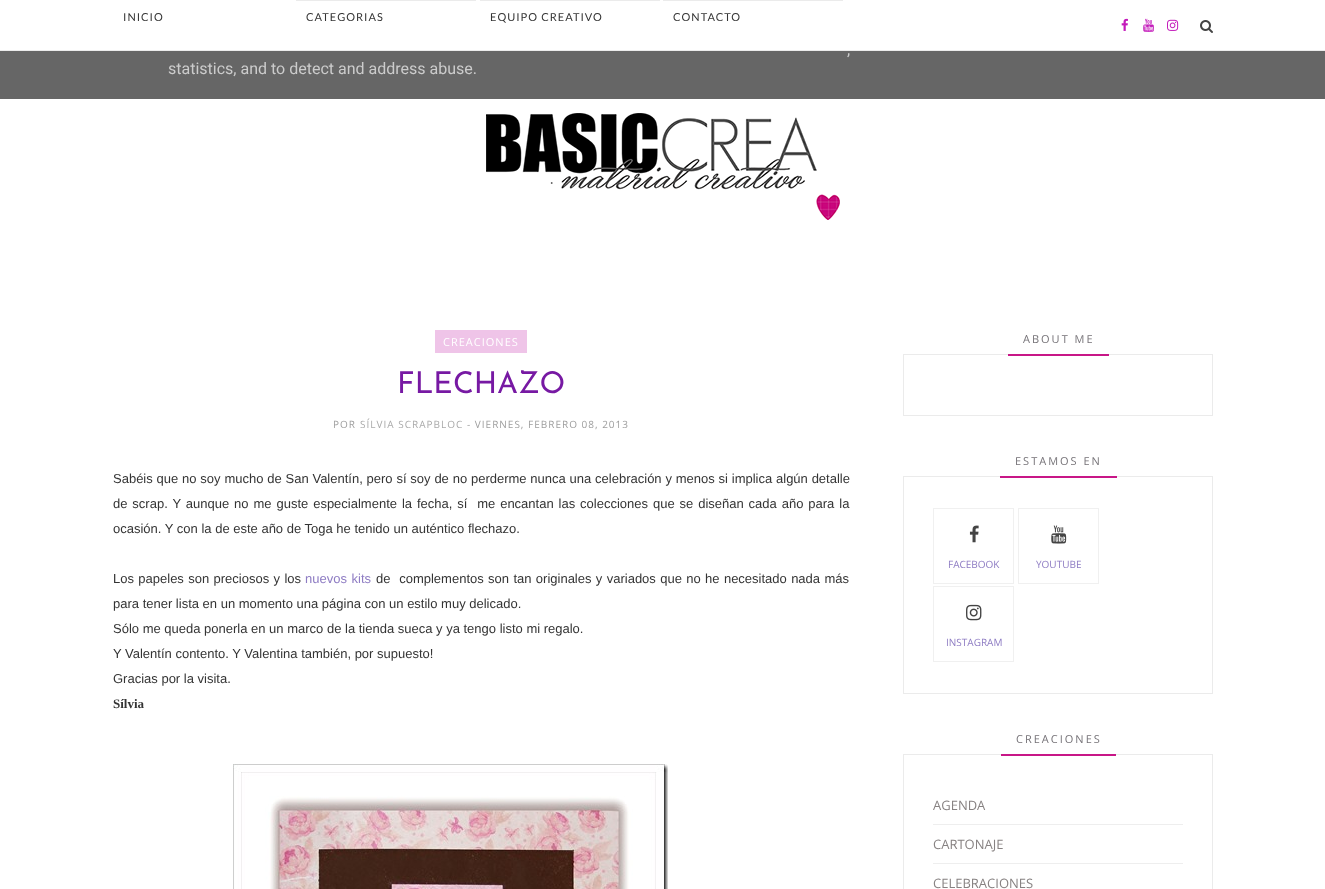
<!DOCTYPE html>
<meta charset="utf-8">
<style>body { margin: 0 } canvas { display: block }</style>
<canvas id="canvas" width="1325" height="889"></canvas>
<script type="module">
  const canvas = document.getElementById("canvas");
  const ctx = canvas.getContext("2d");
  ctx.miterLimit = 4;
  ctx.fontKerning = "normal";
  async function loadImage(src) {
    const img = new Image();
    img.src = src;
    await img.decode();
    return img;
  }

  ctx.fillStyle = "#ffffff";
  ctx.fillRect(0, 0, 1325, 889);
  ctx.fillStyle = "#ebebeb";
  ctx.fillRect(0, 50, 1325, 1);
  ctx.letterSpacing = "1px";
  ctx.font = "11px Lato";
  ctx.fillStyle = "#343434";
  ctx.fillText("INICIO", 123, 21);
  ctx.fillStyle = "#ebebeb";
  ctx.fillRect(296, 0, 180, 1);
  ctx.fillStyle = "#343434";
  ctx.fillText("CATEGORIAS", 306, 21);
  ctx.fillStyle = "#ebebeb";
  ctx.fillRect(480, 0, 180, 1);
  ctx.fillStyle = "#343434";
  ctx.fillText("EQUIPO CREATIVO", 490, 21);
  ctx.fillStyle = "#ebebeb";
  ctx.fillRect(663, 0, 180, 1);
  ctx.fillStyle = "#343434";
  ctx.fillText("CONTACTO", 673, 21);
  ctx.drawImage(await loadImage("img1.png"), 1121, 18, 7, 13);
  ctx.drawImage(await loadImage("img2.png"), 1143, 18, 11, 14);
  ctx.drawImage(await loadImage("img3.png"), 1167, 19, 12, 12);
  ctx.drawImage(await loadImage("img4.png"), 1200, 20, 13, 13);
  ctx.drawImage(await loadImage("img5.png"), 486, 113, 354, 107);
  ctx.fillStyle = "#efc4e8";
  ctx.fillRect(435, 330, 92, 23);
  ctx.font = "11px Open Sans";
  ctx.fillStyle = "#ffffff";
  ctx.fillText("CREACIONES", 443, 346);
  ctx.letterSpacing = "0px";
  ctx.font = "100 30px Josefin Sans";
  ctx.fillStyle = "#7719a3";
  ctx.fillText("FLECHAZO", 397, 393);
  ctx.letterSpacing = "1px";
  ctx.font = "10px Open Sans";
  ctx.fillStyle = "#9e9e9e";
  ctx.fillText("POR", 333, 428);
  ctx.fillStyle = "#aaaaaa";
  ctx.fillText("SÍLVIA SCRAPBLOC", 360, 428);
  ctx.fillStyle = "#9e9e9e";
  ctx.fillText("- VIERNES, FEBRERO 08, 2013", 467, 428);
  ctx.letterSpacing = "0px";
  ctx.wordSpacing = "0.2px";
  ctx.font = "13px Liberation Sans";
  ctx.fillStyle = "#343434";
  ctx.fillText("Sabéis que no soy mucho de San Valentín, pero sí soy de no perderme nunca una celebración y menos si implica algún detalle", 113, 483);
  ctx.wordSpacing = "1.3px";
  ctx.fillText("de scrap. Y aunque no me guste especialmente la fecha, sí  me encantan las colecciones que se diseñan cada año para la", 113, 508);
  ctx.wordSpacing = "0px";
  ctx.fillText("ocasión. Y con la de este año de Toga he tenido un auténtico flechazo.", 113, 533);
  ctx.wordSpacing = "0.75px";
  ctx.fillText("Los papeles son preciosos y los", 113, 583);
  ctx.wordSpacing = "1px";
  ctx.fillStyle = "#8e7cc3";
  ctx.fillText("nuevos kits", 305, 583);
  ctx.wordSpacing = "0.75px";
  ctx.fillStyle = "#343434";
  ctx.fillText("de  complementos son tan originales y variados que no he necesitado nada más", 376, 583);
  ctx.wordSpacing = "0px";
  ctx.fillText("para tener lista en un momento una página con un estilo muy delicado.", 113, 608);
  ctx.fillText("Sólo me queda ponerla en un marco de la tienda sueca y ya tengo listo mi regalo.", 113, 633);
  ctx.fillText("Y Valentín contento. Y Valentina también, por supuesto!", 113, 658);
  ctx.fillText("Gracias por la visita.", 113, 683);
  ctx.font = "bold 13px Liberation Serif";
  ctx.fillText("Sílvia", 113, 708);
  ctx.drawImage(await loadImage("img6.png"), 233, 764, 435, 125);
  ctx.strokeStyle = "#ebebeb";
  ctx.strokeRect(903.5, 354.5, 309, 61);
  ctx.fillStyle = "#c81687";
  ctx.fillRect(1008, 354, 101, 2);
  ctx.letterSpacing = "2px";
  ctx.font = "11px Open Sans";
  ctx.fillStyle = "#757277";
  ctx.fillText("ABOUT ME", 1023, 343);
  ctx.strokeRect(903.5, 476.5, 309, 217);
  ctx.fillStyle = "#c81687";
  ctx.fillRect(1000, 476, 117, 2);
  ctx.fillStyle = "#757277";
  ctx.fillText("ESTAMOS EN", 1015, 465);
  ctx.strokeStyle = "#f0f0f0";
  ctx.strokeRect(933.5, 508.5, 80, 75);
  ctx.drawImage(await loadImage("img7.png"), 969, 525, 10, 18);
  ctx.letterSpacing = "0px";
  ctx.font = "10px Open Sans";
  ctx.fillStyle = "#8e7cc3";
  ctx.fillText("FACEBOOK", 948, 568);
  ctx.strokeRect(1018.5, 508.5, 80, 75);
  ctx.drawImage(await loadImage("img8.png"), 1051, 525, 16, 19);
  ctx.fillText("YOUTUBE", 1036, 568);
  ctx.strokeRect(933.5, 586.5, 80, 75);
  ctx.drawImage(await loadImage("img9.png"), 966, 604, 16, 17);
  ctx.fillText("INSTAGRAM", 946, 646);
  ctx.strokeStyle = "#ebebeb";
  ctx.strokeRect(903.5, 754.5, 309, 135);
  ctx.fillStyle = "#c81687";
  ctx.fillRect(1001, 754, 115, 2);
  ctx.letterSpacing = "2px";
  ctx.font = "11px Open Sans";
  ctx.fillStyle = "#757277";
  ctx.fillText("CREACIONES", 1016, 743);
  ctx.letterSpacing = "0px";
  ctx.font = "13px Open Sans";
  ctx.fillStyle = "#878282";
  ctx.fillText("AGENDA", 933, 810);
  ctx.fillStyle = "#eeeeee";
  ctx.fillRect(933, 824, 250, 1);
  ctx.fillStyle = "#878282";
  ctx.fillText("CARTONAJE", 933, 849);
  ctx.fillStyle = "#eeeeee";
  ctx.fillRect(933, 863, 250, 1);
  ctx.fillStyle = "#878282";
  ctx.fillText("CELEBRACIONES", 933, 888);
  ctx.fillStyle = "#666666";
  ctx.fillRect(0, 51, 1325, 48);
  ctx.font = "16px Roboto";
  ctx.fillStyle = "#cccccc";
  ctx.fillText(",", 847, 55);
  ctx.fillText("statistics, and to detect and address abuse.", 168, 74);
</script>
